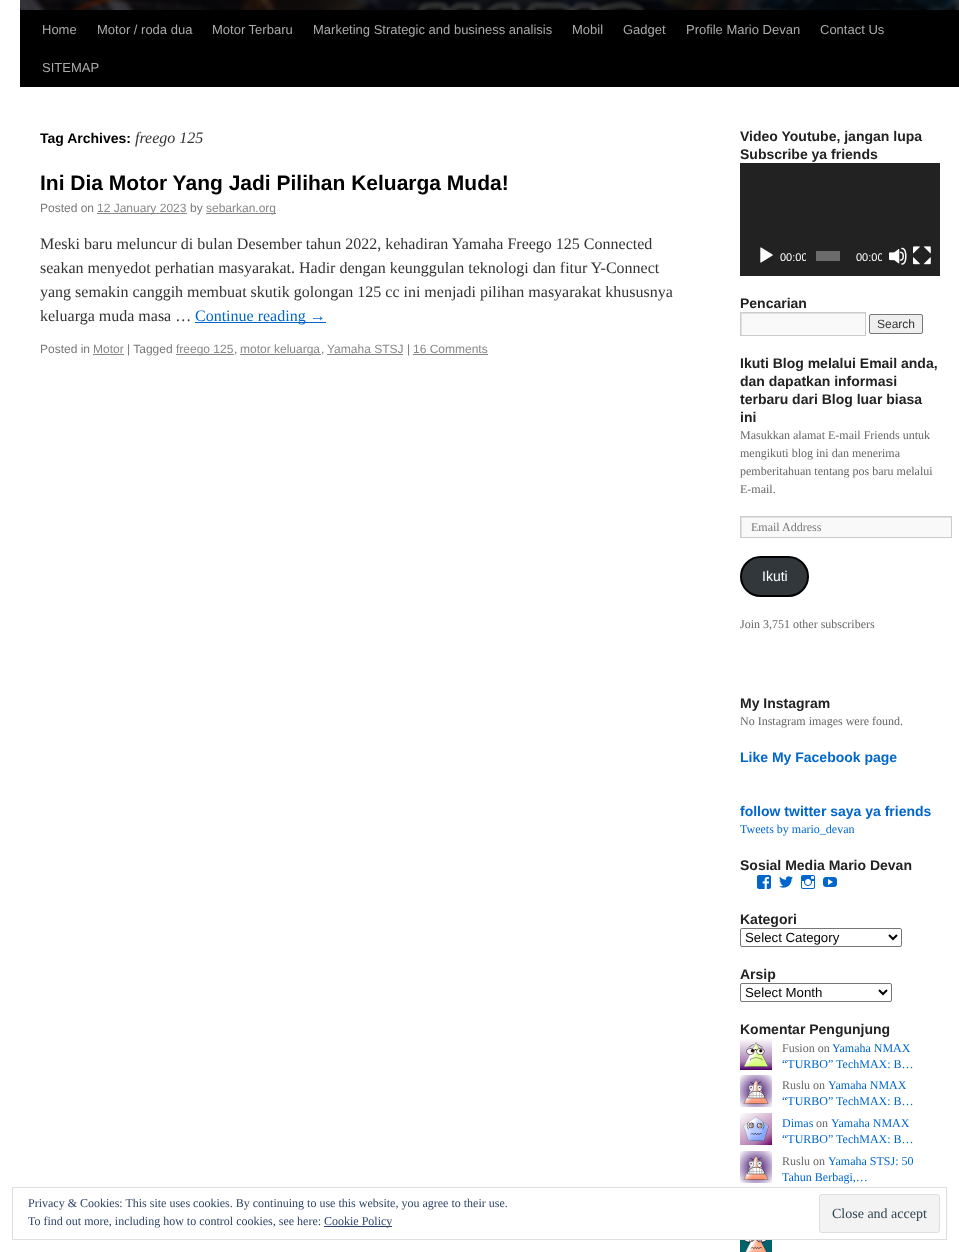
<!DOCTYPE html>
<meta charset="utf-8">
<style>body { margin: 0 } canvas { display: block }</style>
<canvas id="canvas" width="959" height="1252"></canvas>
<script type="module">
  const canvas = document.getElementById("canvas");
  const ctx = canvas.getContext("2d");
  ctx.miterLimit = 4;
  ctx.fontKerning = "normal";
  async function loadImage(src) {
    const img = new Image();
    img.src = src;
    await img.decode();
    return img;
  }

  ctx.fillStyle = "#ffffff";
  ctx.fillRect(0, 0, 959, 1252);
  ctx.fillStyle = "#000000";
  ctx.fillRect(20, 10, 939, 77);
  ctx.drawImage(await loadImage("img1.png"), 20, 0, 939, 10);
  ctx.font = "13px Liberation Sans";
  ctx.fillStyle = "#aaaaaa";
  ctx.fillText("Home", 42, 34);
  ctx.fillText("Motor / roda dua", 97, 34);
  ctx.fillText("Motor Terbaru", 212, 34);
  ctx.fillText("Marketing Strategic and business analisis", 313, 34);
  ctx.fillText("Mobil", 572, 34);
  ctx.fillText("Gadget", 623, 34);
  ctx.fillText("Profile Mario Devan", 686, 34);
  ctx.fillText("Contact Us", 820, 34);
  ctx.fillText("SITEMAP", 42, 72);
  ctx.font = "bold 14px Liberation Sans";
  ctx.fillStyle = "#000000";
  ctx.fillText("Tag Archives:", 40, 143);
  ctx.font = "italic 16px Liberation Serif";
  ctx.fillStyle = "#333333";
  ctx.fillText("freego 125", 135, 143);
  ctx.font = "bold 21px Liberation Sans";
  ctx.fillStyle = "#000000";
  ctx.fillText("Ini Dia Motor Yang Jadi Pilihan Keluarga Muda!", 40, 190);
  ctx.font = "12px Liberation Sans";
  ctx.fillStyle = "#777777";
  ctx.fillText("Posted on", 40, 212);
  ctx.fillStyle = "#888888";
  ctx.fillRect(97, 213, 90, 1);
  ctx.fillText("12 January 2023", 97, 212);
  ctx.fillStyle = "#777777";
  ctx.fillText("by", 190, 212);
  ctx.fillStyle = "#888888";
  ctx.fillRect(206, 213, 70, 1);
  ctx.fillText("sebarkan.org", 206, 212);
  ctx.font = "16px Liberation Serif";
  ctx.fillStyle = "#333333";
  ctx.fillText("Meski baru meluncur di bulan Desember tahun 2022, kehadiran Yamaha Freego 125 Connected", 40, 249);
  ctx.fillText("seakan menyedot perhatian masyarakat. Hadir dengan keunggulan teknologi dan fitur Y-Connect", 40, 273);
  ctx.fillText("yang semakin canggih membuat skutik golongan 125 cc ini menjadi pilihan masyarakat khususnya", 40, 297);
  ctx.fillText("keluarga muda masa …", 40, 321);
  ctx.fillStyle = "#0066cc";
  ctx.fillRect(195, 322, 131, 1);
  ctx.fillText("Continue reading →", 195, 321);
  ctx.font = "12px Liberation Sans";
  ctx.fillStyle = "#777777";
  ctx.fillText("Posted in", 40, 353);
  ctx.fillStyle = "#888888";
  ctx.fillText("Motor", 93, 353);
  ctx.fillRect(93, 354, 31, 1);
  ctx.fillStyle = "#777777";
  ctx.fillText("| Tagged", 127, 353);
  ctx.fillStyle = "#888888";
  ctx.fillRect(176, 354, 58, 1);
  ctx.fillText("freego 125", 176, 353);
  ctx.fillStyle = "#777777";
  ctx.fillText(",", 234, 353);
  ctx.fillStyle = "#888888";
  ctx.fillRect(240, 354, 81, 1);
  ctx.fillText("motor keluarga", 240, 353);
  ctx.fillStyle = "#777777";
  ctx.fillText(",", 321, 353);
  ctx.fillStyle = "#888888";
  ctx.fillRect(327, 354, 76, 1);
  ctx.fillText("Yamaha STSJ", 327, 353);
  ctx.fillStyle = "#777777";
  ctx.fillText("|", 407, 353);
  ctx.fillStyle = "#888888";
  ctx.fillText("16 Comments", 413, 353);
  ctx.fillRect(413, 354, 75, 1);
  ctx.font = "bold 14px Liberation Sans";
  ctx.fillStyle = "#222222";
  ctx.fillText("Video Youtube, jangan lupa", 740, 141);
  ctx.fillText("Subscribe ya friends", 740, 159);
  ctx.fillRect(740, 163, 200, 113);
  ctx.drawImage(await loadImage("img2.png"), 760, 247, 13, 16);
  ctx.save();
  ctx.beginPath();
  ctx.rect(774, 236, 32, 40);
  ctx.clip();
  ctx.font = "11px Liberation Sans";
  ctx.fillStyle = "#ffffff";
  ctx.fillText("00:00", 780, 261);
  ctx.restore();
  ctx.fillStyle = "#6b6b6b";
  ctx.fillRect(816, 251, 24, 10);
  ctx.save();
  ctx.beginPath();
  ctx.rect(850, 236, 32, 40);
  ctx.clip();
  ctx.font = "11px Liberation Sans";
  ctx.fillStyle = "#ffffff";
  ctx.fillText("00:00", 856, 261);
  ctx.restore();
  ctx.drawImage(await loadImage("img3.png"), 889, 247, 18, 18);
  ctx.drawImage(await loadImage("img4.png"), 913, 246, 18, 19);
  ctx.fillStyle = "#222222";
  ctx.fillText("Pencarian", 740, 308);
  ctx.fillStyle = "#f9f9f9";
  ctx.fillRect(742, 314, 123, 21);
  ctx.save();
  ctx.beginPath();
  ctx.rect(741, 313, 124, 22);
  ctx.clip();
  ctx.fillStyle = "#e0e0e0";
  ctx.beginPath();
  ctx.moveTo(642, 214);
  ctx.lineTo(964, 214);
  ctx.lineTo(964, 434);
  ctx.lineTo(642, 434);
  ctx.closePath();
  ctx.moveTo(742, 314);
  ctx.lineTo(866, 314);
  ctx.lineTo(866, 336);
  ctx.lineTo(742, 336);
  ctx.closePath();
  ctx.fill("evenodd");
  ctx.restore();
  ctx.strokeStyle = "#cccccc";
  ctx.strokeRect(740.5, 312.5, 125, 23);
  ctx.fillStyle = "#efefef";
  ctx.beginPath();
  ctx.roundRect(869.5, 314.5, 53, 19, 1.5);
  ctx.fill();
  ctx.strokeStyle = "#767676";
  ctx.stroke();
  ctx.font = "12px Liberation Sans";
  ctx.fillStyle = "#333333";
  ctx.fillText("Search", 877, 328);
  ctx.font = "bold 14px Liberation Sans";
  ctx.fillStyle = "#222222";
  ctx.fillText("Ikuti Blog melalui Email anda,", 740, 368);
  ctx.fillText("dan dapatkan informasi", 740, 386);
  ctx.fillText("terbaru dari Blog luar biasa", 740, 404);
  ctx.fillText("ini", 740, 422);
  ctx.font = "12px Liberation Serif";
  ctx.fillStyle = "#666666";
  ctx.fillText("Masukkan alamat E-mail Friends untuk", 740, 439);
  ctx.fillText("mengikuti blog ini dan menerima", 740, 457);
  ctx.fillText("pemberitahuan tentang pos baru melalui", 740, 475);
  ctx.fillText("E-mail.", 740, 493);
  ctx.fillStyle = "#f9f9f9";
  ctx.fillRect(742, 518, 209, 19);
  ctx.save();
  ctx.beginPath();
  ctx.rect(741, 517, 210, 20);
  ctx.clip();
  ctx.fillStyle = "#e0e0e0";
  ctx.beginPath();
  ctx.moveTo(642, 418);
  ctx.lineTo(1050, 418);
  ctx.lineTo(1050, 636);
  ctx.lineTo(642, 636);
  ctx.closePath();
  ctx.moveTo(742, 518);
  ctx.lineTo(952, 518);
  ctx.lineTo(952, 538);
  ctx.lineTo(742, 538);
  ctx.closePath();
  ctx.fill("evenodd");
  ctx.restore();
  ctx.strokeStyle = "#cccccc";
  ctx.strokeRect(740.5, 516.5, 211, 21);
  ctx.fillStyle = "#777777";
  ctx.fillText("Email Address", 751, 531);
  ctx.fillStyle = "#32373c";
  ctx.beginPath();
  ctx.roundRect(741, 557, 67, 39, 19.5);
  ctx.fill();
  ctx.strokeStyle = "#000000";
  ctx.lineWidth = 2;
  ctx.stroke();
  ctx.font = "14px Liberation Sans";
  ctx.fillStyle = "#ffffff";
  ctx.fillText("Ikuti", 762, 581);
  ctx.font = "12px Liberation Serif";
  ctx.fillStyle = "#666666";
  ctx.fillText("Join 3,751 other subscribers", 740, 628);
  ctx.font = "bold 14px Liberation Sans";
  ctx.fillStyle = "#222222";
  ctx.fillText("My Instagram", 740, 708);
  ctx.font = "12px Liberation Serif";
  ctx.fillStyle = "#666666";
  ctx.fillText("No Instagram images were found.", 740, 725);
  ctx.font = "bold 14px Liberation Sans";
  ctx.fillStyle = "#0066cc";
  ctx.fillText("Like My Facebook page", 740, 762);
  ctx.fillText("follow twitter saya ya friends", 740, 816);
  ctx.font = "12px Liberation Serif";
  ctx.fillText("Tweets by mario_devan", 740, 833);
  ctx.font = "bold 14px Liberation Sans";
  ctx.fillStyle = "#222222";
  ctx.fillText("Sosial Media Mario Devan", 740, 870);
  ctx.drawImage(await loadImage("img5.png"), 757, 875, 14, 14);
  ctx.drawImage(await loadImage("img6.png"), 779, 876, 14, 12);
  ctx.drawImage(await loadImage("img7.png"), 801, 875, 14, 14);
  ctx.drawImage(await loadImage("img8.png"), 823, 877, 14, 10);
  ctx.fillText("Kategori", 740, 924);
  ctx.beginPath();
  ctx.roundRect(740.5, 928.5, 161, 18, 1.5);
  ctx.strokeStyle = "#767676";
  ctx.lineWidth = 1;
  ctx.stroke();
  ctx.beginPath();
  ctx.moveTo(889, 935);
  ctx.lineTo(893, 939);
  ctx.lineTo(897, 935);
  ctx.strokeStyle = "#000000";
  ctx.lineWidth = 2;
  ctx.stroke();
  ctx.font = "13.25px Liberation Sans";
  ctx.fillStyle = "#000000";
  ctx.fillText("Select Category", 745, 942);
  ctx.font = "bold 14px Liberation Sans";
  ctx.fillStyle = "#222222";
  ctx.fillText("Arsip", 740, 979);
  ctx.beginPath();
  ctx.roundRect(740.5, 983.5, 151, 18, 1.5);
  ctx.strokeStyle = "#767676";
  ctx.lineWidth = 1;
  ctx.stroke();
  ctx.beginPath();
  ctx.moveTo(879, 990);
  ctx.lineTo(883, 994);
  ctx.lineTo(887, 990);
  ctx.strokeStyle = "#000000";
  ctx.lineWidth = 2;
  ctx.stroke();
  ctx.font = "13.25px Liberation Sans";
  ctx.fillStyle = "#000000";
  ctx.fillText("Select Month", 745, 997);
  ctx.font = "bold 14px Liberation Sans";
  ctx.fillStyle = "#222222";
  ctx.fillText("Komentar Pengunjung", 740, 1034);
  ctx.drawImage(await loadImage("img9.png"), 740, 1039, 32, 31);
  ctx.font = "12px Liberation Serif";
  ctx.fillStyle = "#666666";
  ctx.fillText("Fusion on", 782, 1052);
  ctx.fillStyle = "#0066cc";
  ctx.fillText("Yamaha NMAX", 832, 1052);
  ctx.fillText("“TURBO” TechMAX: B…", 782, 1068);
  ctx.drawImage(await loadImage("img10.png"), 740, 1075, 32, 32);
  ctx.fillStyle = "#666666";
  ctx.fillText("Ruslu on", 782, 1089);
  ctx.fillStyle = "#0066cc";
  ctx.fillText("Yamaha NMAX", 828, 1089);
  ctx.fillText("“TURBO” TechMAX: B…", 782, 1105);
  ctx.drawImage(await loadImage("img11.png"), 740, 1113, 32, 32);
  ctx.fillText("Dimas", 782, 1127);
  ctx.fillStyle = "#666666";
  ctx.fillText("on", 816, 1127);
  ctx.fillStyle = "#0066cc";
  ctx.fillText("Yamaha NMAX", 831, 1127);
  ctx.fillText("“TURBO” TechMAX: B…", 782, 1143);
  ctx.drawImage(await loadImage("img10.png"), 740, 1151, 32, 32);
  ctx.fillStyle = "#666666";
  ctx.fillText("Ruslu on", 782, 1165);
  ctx.fillStyle = "#0066cc";
  ctx.fillText("Yamaha STSJ: 50", 828, 1165);
  ctx.fillText("Tahun Berbagi,…", 782, 1181);
  ctx.drawImage(await loadImage("img12.png"), 740, 1240, 32, 12);
  ctx.strokeStyle = "#dedede";
  ctx.lineWidth = 1;
  ctx.strokeRect(12.5, 1187.5, 934, 52);
  ctx.fillStyle = "#2e4467";
  ctx.fillText("Privacy & Cookies: This site uses cookies. By continuing to use this website, you agree to their use.", 28, 1207);
  ctx.fillText("To find out more, including how to control cookies, see here:", 28, 1225);
  ctx.fillRect(324, 1226, 68, 1);
  ctx.fillText("Cookie Policy", 324, 1225);
  ctx.fillStyle = "#f3f3f3";
  ctx.beginPath();
  ctx.roundRect(819.5, 1194.5, 120, 38, 2.5);
  ctx.fill();
  ctx.stroke();
  ctx.font = "14px Liberation Serif";
  ctx.fillStyle = "#2e4453";
  ctx.fillText("Close and accept", 832, 1218);
</script>
